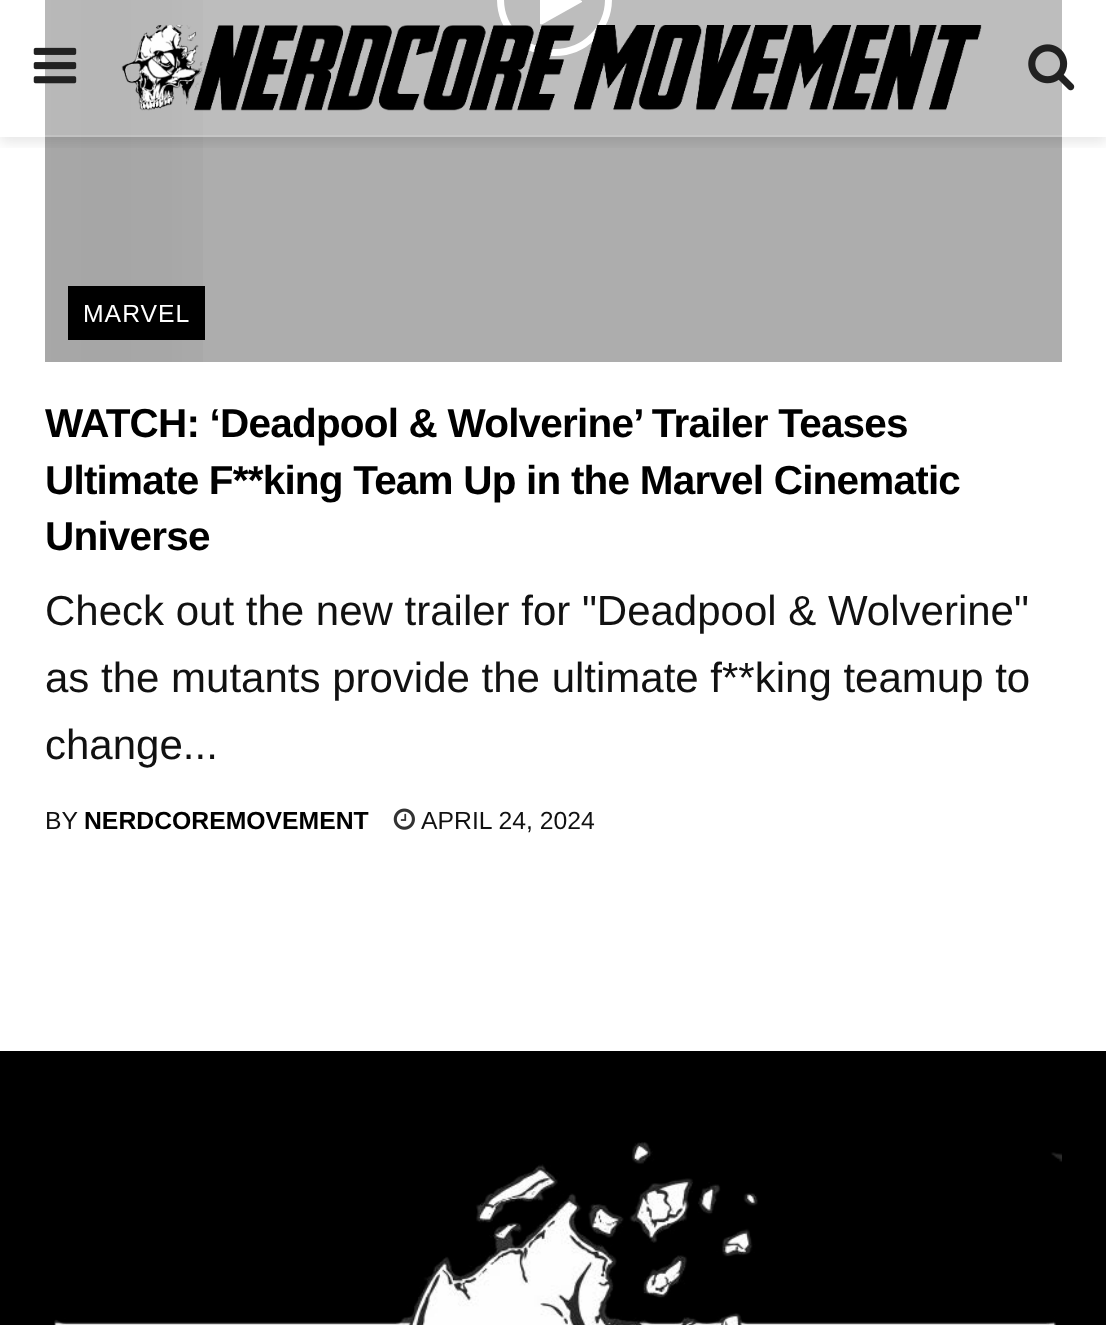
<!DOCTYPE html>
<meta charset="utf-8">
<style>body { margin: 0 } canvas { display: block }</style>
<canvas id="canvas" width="1106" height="1325"></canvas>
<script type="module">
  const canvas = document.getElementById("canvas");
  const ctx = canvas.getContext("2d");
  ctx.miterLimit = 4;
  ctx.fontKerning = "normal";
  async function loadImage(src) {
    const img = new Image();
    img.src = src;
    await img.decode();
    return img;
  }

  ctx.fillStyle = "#ffffff";
  ctx.fillRect(0, 0, 1106, 1325);
  ctx.fillStyle = "#adadad";
  ctx.fillRect(203, 0, 859, 362);
  ctx.beginPath();
  ctx.roundRect(500.5, -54.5, 108, 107, 53.5);
  ctx.strokeStyle = "#ffffff";
  ctx.lineWidth = 7;
  ctx.stroke();
  ctx.fillStyle = "#ffffff";
  ctx.beginPath();
  ctx.moveTo(582, 2);
  ctx.lineTo(548, 21);
  ctx.bezierCurveTo(548, 21, 541, 26, 540, 24);
  ctx.lineTo(540, -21);
  ctx.lineTo(541, -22);
  ctx.lineTo(575, -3);
  ctx.lineTo(582, 1);
  ctx.closePath();
  ctx.fill();
  ctx.drawImage(await loadImage("img4.png"), 45, 0, 158, 362);
  ctx.save();
  ctx.beginPath();
  ctx.rect(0, 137, 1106, 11);
  ctx.clip();
  ctx.fillStyle = "rgba(0, 0, 0, 0.1)";
  ctx.filter = "blur(7px)";
  ctx.beginPath();
  ctx.rect(0, 5, 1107, 137);
  ctx.fill();
  ctx.filter = "none";
  ctx.restore();
  ctx.fillStyle = "rgba(255, 255, 255, 0.2)";
  ctx.fillRect(45, 0, 1017, 137);
  ctx.fillStyle = "rgba(255, 255, 255, 0.15)";
  ctx.fillRect(45, 135, 1017, 2);
  ctx.drawImage(await loadImage("img1.png"), 33, 47, 44, 37);
  ctx.drawImage(await loadImage("img2.png"), 121, 25, 861, 86);
  ctx.drawImage(await loadImage("img3.png"), 1028, 44, 47, 47);
  ctx.fillStyle = "#000000";
  ctx.fillRect(68, 286, 137, 54);
  ctx.letterSpacing = "1px";
  ctx.font = "24.75px Liberation Sans";
  ctx.fillStyle = "#ffffff";
  ctx.fillText("MARVEL", 83, 322);
  ctx.letterSpacing = "-0.8px";
  ctx.font = "bold 40.5px Liberation Sans";
  ctx.fillStyle = "#000000";
  ctx.fillText("WATCH: ‘Deadpool & Wolverine’ Trailer Teases", 45, 437);
  ctx.fillText("Ultimate F**king Team Up in the Marvel Cinematic", 45, 494);
  ctx.fillText("Universe", 45, 550);
  ctx.letterSpacing = "0px";
  ctx.font = "42px Liberation Sans";
  ctx.fillStyle = "#111111";
  ctx.fillText("Check out the new trailer for \"Deadpool & Wolverine\"", 45, 625);
  ctx.fillText("as the mutants provide the ultimate f**king teamup to", 45, 692);
  ctx.fillText("change...", 45, 759);
  ctx.font = "24.75px Liberation Sans";
  ctx.fillText("BY", 45, 829);
  ctx.font = "bold 24.75px Liberation Sans";
  ctx.fillStyle = "#000000";
  ctx.fillText("NERDCOREMOVEMENT", 84, 829);
  ctx.drawImage(await loadImage("img5.png"), 393, 808, 22, 22);
  ctx.font = "24.75px Liberation Sans";
  ctx.fillStyle = "#111111";
  ctx.fillText("APRIL 24, 2024", 421, 829);
  ctx.fillStyle = "#000000";
  ctx.fillRect(0, 1051, 1106, 274);
  ctx.drawImage(await loadImage("img6.png"), 54, 1142, 1008, 183);
</script>
